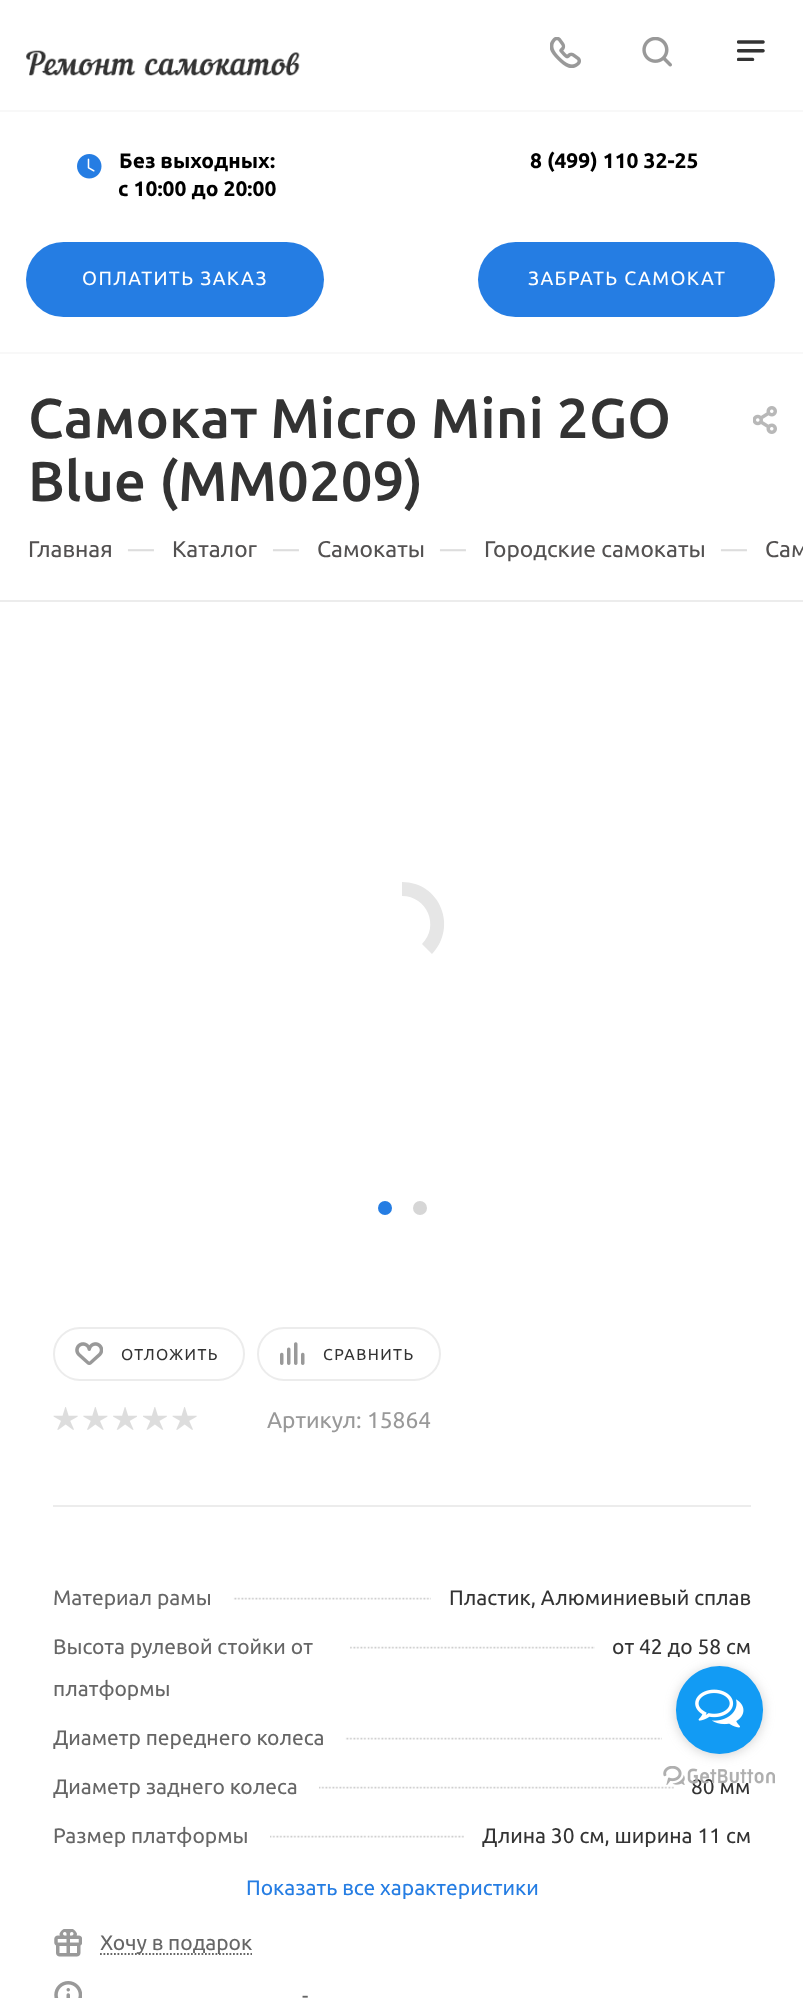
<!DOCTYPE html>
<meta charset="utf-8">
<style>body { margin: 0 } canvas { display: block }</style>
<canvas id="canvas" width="803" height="1998"></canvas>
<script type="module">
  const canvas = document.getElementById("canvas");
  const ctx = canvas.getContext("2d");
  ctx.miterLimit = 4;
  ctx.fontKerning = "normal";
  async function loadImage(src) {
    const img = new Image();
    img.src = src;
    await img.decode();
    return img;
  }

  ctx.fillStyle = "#ffffff";
  ctx.fillRect(0, 0, 803, 1998);
  ctx.fillStyle = "#f8f8f8";
  ctx.fillRect(0, 110, 803, 2);
  ctx.drawImage(await loadImage("img1.png"), 26, 50, 274, 26);
  ctx.drawImage(await loadImage("img2.png"), 550, 37, 31, 31);
  ctx.drawImage(await loadImage("img3.png"), 642, 37, 30, 30);
  ctx.drawImage(await loadImage("img4.png"), 737, 40, 28, 21);
  ctx.fillRect(0, 352, 803, 2);
  ctx.drawImage(await loadImage("img5.png"), 77, 154, 25, 25);
  ctx.font = "bold 21px Ubuntu";
  ctx.fillStyle = "#000000";
  ctx.fillText("Без выходных:", 119, 168);
  ctx.fillText("с 10:00 до 20:00", 118, 196);
  ctx.fillText("8 (499) 110 32-25", 530, 168);
  ctx.fillStyle = "#257de3";
  ctx.beginPath();
  ctx.roundRect(26, 242, 298, 75, 37.5);
  ctx.fill();
  ctx.letterSpacing = "1.4px";
  ctx.font = "19.25px Ubuntu";
  ctx.fillStyle = "#ffffff";
  ctx.fillText("ОПЛАТИТЬ ЗАКАЗ", 82, 285);
  ctx.fillStyle = "#257de3";
  ctx.beginPath();
  ctx.roundRect(478, 242, 297, 75, 37.5);
  ctx.fill();
  ctx.fillStyle = "#ffffff";
  ctx.fillText("ЗАБРАТЬ САМОКАТ", 528, 285);
  ctx.letterSpacing = "0px";
  ctx.font = "500 56px Ubuntu";
  ctx.fillStyle = "#333333";
  ctx.fillText("Самокат Micro Mini 2GO", 28, 438);
  ctx.fillText("Blue (ММ0209)", 28, 501);
  ctx.drawImage(await loadImage("img6.png"), 753, 406, 24, 28);
  ctx.font = "22.75px Ubuntu";
  ctx.fillStyle = "#535151";
  ctx.fillText("Главная", 28, 557);
  ctx.font = "26px Ubuntu";
  ctx.fillStyle = "#dddddd";
  ctx.fillText("—", 128, 558);
  ctx.font = "22.75px Ubuntu";
  ctx.fillStyle = "#535151";
  ctx.fillText("Каталог", 172, 557);
  ctx.font = "26px Ubuntu";
  ctx.fillStyle = "#dddddd";
  ctx.fillText("—", 273, 558);
  ctx.font = "22.75px Ubuntu";
  ctx.fillStyle = "#535151";
  ctx.fillText("Самокаты", 317, 557);
  ctx.font = "26px Ubuntu";
  ctx.fillStyle = "#dddddd";
  ctx.fillText("—", 440, 558);
  ctx.font = "22.75px Ubuntu";
  ctx.fillStyle = "#535151";
  ctx.fillText("Городские самокаты", 484, 557);
  ctx.font = "26px Ubuntu";
  ctx.fillStyle = "#dddddd";
  ctx.fillText("—", 721, 558);
  ctx.font = "22.75px Ubuntu";
  ctx.fillStyle = "#535151";
  ctx.fillText("Сам", 765, 557);
  ctx.fillStyle = "#ececec";
  ctx.fillRect(0, 600, 803, 2);
  ctx.fillStyle = "#e6e6e6";
  ctx.beginPath();
  ctx.moveTo(402, 882);
  ctx.bezierCurveTo(440, 882, 458, 927, 432, 954);
  ctx.lineTo(422, 944);
  ctx.bezierCurveTo(440, 926, 427, 896, 402, 896);
  ctx.closePath();
  ctx.fill();
  ctx.fillStyle = "#257de3";
  ctx.beginPath();
  ctx.arc(385, 1208, 7, 0, Math.PI * 2);
  ctx.fill();
  ctx.fillStyle = "#d6d6d6";
  ctx.beginPath();
  ctx.arc(420, 1208, 7, 0, Math.PI * 2);
  ctx.fill();
  ctx.fillStyle = "#ececec";
  ctx.fillRect(53, 1505, 698, 2);
  ctx.beginPath();
  ctx.roundRect(54, 1328, 190, 52, 26);
  ctx.strokeStyle = "#ececec";
  ctx.lineWidth = 2;
  ctx.stroke();
  ctx.drawImage(await loadImage("img7.png"), 75, 1342, 28, 23);
  ctx.letterSpacing = "1.4px";
  ctx.font = "15.75px Ubuntu";
  ctx.fillStyle = "#333333";
  ctx.fillText("ОТЛОЖИТЬ", 121, 1360);
  ctx.beginPath();
  ctx.roundRect(258, 1328, 182, 52, 26);
  ctx.stroke();
  ctx.drawImage(await loadImage("img8.png"), 280, 1342, 25, 23);
  ctx.fillText("СРАВНИТЬ", 323, 1360);
  ctx.drawImage(await loadImage("img9.png"), 53, 1407, 25, 23);
  ctx.drawImage(await loadImage("img10.png"), 83, 1407, 25, 23);
  ctx.drawImage(await loadImage("img11.png"), 113, 1407, 24, 23);
  ctx.drawImage(await loadImage("img12.png"), 143, 1407, 24, 23);
  ctx.drawImage(await loadImage("img9.png"), 172, 1407, 25, 23);
  ctx.letterSpacing = "0px";
  ctx.font = "22.75px Ubuntu";
  ctx.fillStyle = "#999999";
  ctx.fillText("Артикул: 15864", 267, 1428);
  ctx.drawImage(await loadImage("img13.png"), 233, 1597, 135, 3);
  ctx.font = "21px Ubuntu";
  ctx.fillStyle = "#666666";
  ctx.fillText("Материал рамы", 53, 1605);
  ctx.drawImage(await loadImage("img14.png"), 368, 1597, 63, 3);
  ctx.fillStyle = "#333333";
  ctx.fillText("Пластик, Алюминиевый сплав", 449, 1605);
  ctx.drawImage(await loadImage("img15.png"), 350, 1646, 18, 3);
  ctx.fillStyle = "#666666";
  ctx.fillText("Высота рулевой стойки от", 53, 1654);
  ctx.fillText("платформы", 53, 1696);
  ctx.drawImage(await loadImage("img16.png"), 368, 1646, 227, 3);
  ctx.fillStyle = "#333333";
  ctx.fillText("от 42 до 58 см", 612, 1654);
  ctx.drawImage(await loadImage("img17.png"), 345, 1737, 23, 3);
  ctx.fillStyle = "#666666";
  ctx.fillText("Диаметр переднего колеса", 53, 1745);
  ctx.drawImage(await loadImage("img18.png"), 368, 1737, 294, 3);
  ctx.drawImage(await loadImage("img19.png"), 319, 1786, 49, 3);
  ctx.fillText("Диаметр заднего колеса", 53, 1794);
  ctx.drawImage(await loadImage("img20.png"), 368, 1786, 306, 3);
  ctx.fillStyle = "#333333";
  ctx.fillText("80 мм", 691, 1794);
  ctx.drawImage(await loadImage("img21.png"), 270, 1835, 98, 3);
  ctx.fillStyle = "#666666";
  ctx.fillText("Размер платформы", 53, 1843);
  ctx.drawImage(await loadImage("img22.png"), 368, 1835, 96, 3);
  ctx.fillStyle = "#333333";
  ctx.fillText("Длина 30 см, ширина 11 см", 482, 1843);
  ctx.fillStyle = "#257de3";
  ctx.fillText("Показать все характеристики", 246, 1895);
  ctx.drawImage(await loadImage("img23.png"), 54, 1929, 28, 28);
  ctx.beginPath();
  ctx.moveTo(100, 1954);
  ctx.lineTo(252, 1954);
  ctx.strokeStyle = "#666666";
  ctx.lineWidth = 1.8;
  ctx.setLineDash([1.75, 1.75]);
  ctx.stroke();
  ctx.fillStyle = "#666666";
  ctx.fillText("Хочу в подарок", 100, 1950);
  ctx.drawImage(await loadImage("img24.png"), 54, 1981, 28, 17);
  ctx.fillText("-", 302, 2003);
  ctx.drawImage(await loadImage("img26.png"), 663, 1766, 112, 19);
  ctx.fillStyle = "rgba(136, 136, 136, 0.4)";
  ctx.filter = "blur(6px)";
  ctx.beginPath();
  ctx.roundRect(676, 1668, 87, 87, 43.5);
  ctx.fill();
  ctx.filter = "none";
  ctx.fillStyle = "#129bf4";
  ctx.beginPath();
  ctx.roundRect(676, 1666, 87, 88, 43.5);
  ctx.fill();
  ctx.drawImage(await loadImage("img25.png"), 695, 1689, 49, 39);
</script>
